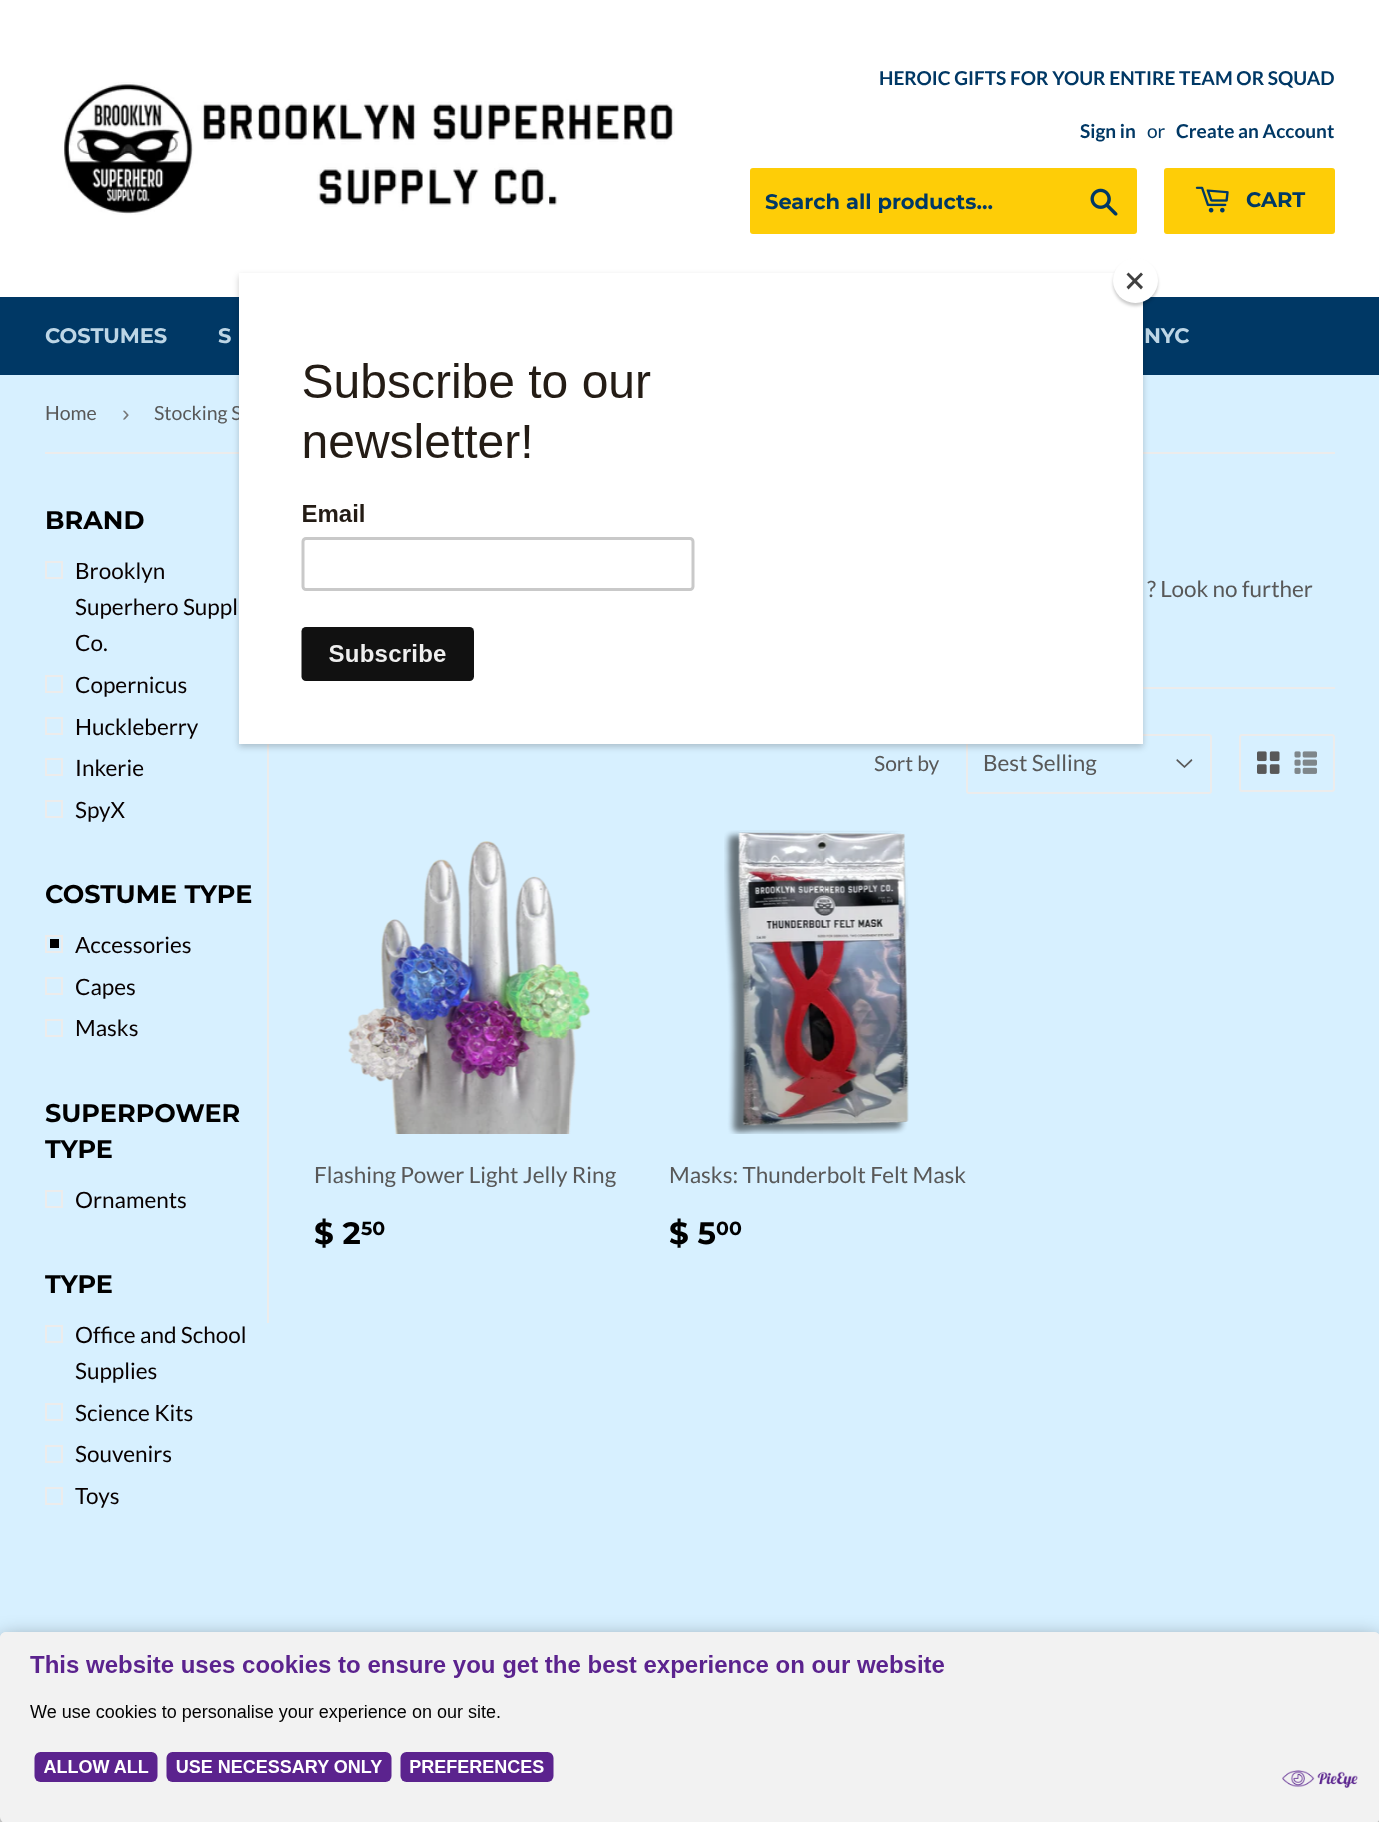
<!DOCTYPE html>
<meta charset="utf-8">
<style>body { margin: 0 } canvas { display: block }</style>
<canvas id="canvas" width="1379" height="1822"></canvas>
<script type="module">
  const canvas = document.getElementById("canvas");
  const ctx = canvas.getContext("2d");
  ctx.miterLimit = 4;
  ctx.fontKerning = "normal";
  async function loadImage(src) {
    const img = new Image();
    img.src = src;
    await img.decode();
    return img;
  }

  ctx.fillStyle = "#d7f0ff";
  ctx.fillRect(0, 0, 1379, 1822);
  ctx.fillStyle = "#ffffff";
  ctx.fillRect(0, 0, 1379, 297);
  ctx.drawImage(await loadImage("img1.png"), 64, 82, 611, 133);
  ctx.font = "bold 19.1px Lato";
  ctx.fillStyle = "#003865";
  ctx.fillText("HEROIC GIFTS FOR YOUR ENTIRE TEAM OR SQUAD", 879, 85);
  ctx.fillText("Sign in", 1080, 138);
  ctx.font = "19.1px Lato";
  ctx.fillText("or", 1147, 138);
  ctx.font = "bold 19.1px Lato";
  ctx.fillText("Create an Account", 1176, 138);
  ctx.fillStyle = "#fecd07";
  ctx.beginPath();
  ctx.roundRect(750, 168, 387, 66, 3);
  ctx.fill();
  ctx.font = "100 21px Montserrat";
  ctx.fillStyle = "#003865";
  ctx.fillText("Search all products...", 765, 209);
  ctx.drawImage(await loadImage("img2.png"), 1090, 188, 28, 28);
  ctx.fillStyle = "#fecd07";
  ctx.beginPath();
  ctx.roundRect(1164, 168, 171, 66, 3);
  ctx.fill();
  ctx.drawImage(await loadImage("img3.png"), 1195, 186, 34, 27);
  ctx.fillStyle = "#003865";
  ctx.fillText("CART", 1246, 207);
  ctx.fillRect(0, 297, 1379, 78);
  ctx.fillStyle = "#bdd6e6";
  ctx.fillText("COSTUMES", 45, 343);
  ctx.fillText("S", 218, 343);
  ctx.fillText("NYC", 1144, 343);
  ctx.fillStyle = "#ececec";
  ctx.fillRect(45, 452, 1290, 2);
  ctx.fillRect(267, 744, 2, 579);
  ctx.fillRect(1143, 687, 192, 2);
  ctx.drawImage(await loadImage("img5.png"), 1176, 759, 17, 9);
  ctx.beginPath();
  ctx.roundRect(967, 735, 244, 58, 2);
  ctx.strokeStyle = "#ececec";
  ctx.lineWidth = 2;
  ctx.stroke();
  ctx.save();
  ctx.beginPath();
  ctx.moveTo(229, 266);
  ctx.lineTo(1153, 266);
  ctx.lineTo(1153, 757);
  ctx.lineTo(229, 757);
  ctx.closePath();
  ctx.moveTo(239, 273);
  ctx.lineTo(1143, 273);
  ctx.lineTo(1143, 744);
  ctx.lineTo(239, 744);
  ctx.closePath();
  ctx.clip("evenodd");
  ctx.fillStyle = "rgba(0, 0, 0, 0.2)";
  ctx.filter = "blur(3px)";
  ctx.beginPath();
  ctx.rect(239, 276, 904, 471);
  ctx.fill();
  ctx.filter = "none";
  ctx.restore();
  ctx.font = "19.5px Lato";
  ctx.fillStyle = "#585858";
  ctx.fillText("Stocking S", 154, 420);
  ctx.drawImage(await loadImage("img4.png"), 239, 297, 904, 447);
  ctx.fillStyle = "rgba(0, 0, 0, 0.2)";
  ctx.filter = "blur(1.5px)";
  ctx.beginPath();
  ctx.roundRect(1113, 261, 45, 45, 22.5);
  ctx.fill();
  ctx.filter = "none";
  ctx.fillStyle = "#ffffff";
  ctx.beginPath();
  ctx.arc(1135.5, 280.5, 22.5, 0, Math.PI * 2);
  ctx.fill();
  ctx.fillStyle = "#414141";
  ctx.beginPath();
  ctx.moveTo(1141, 272.5);
  ctx.lineTo(1143, 274.5);
  ctx.lineTo(1128.5, 289.5);
  ctx.lineTo(1126.5, 287);
  ctx.closePath();
  ctx.fill();
  ctx.beginPath();
  ctx.moveTo(1126.5, 274.5);
  ctx.lineTo(1128.5, 272.5);
  ctx.lineTo(1143, 287);
  ctx.lineTo(1141, 289.5);
  ctx.closePath();
  ctx.fill();
  ctx.fillStyle = "#585858";
  ctx.fillText("Home", 45, 420);
  ctx.font = "22.5px Liberation Sans";
  ctx.fillStyle = "#767676";
  ctx.fillText("›", 122, 421);
  ctx.font = "100 25.5px Montserrat";
  ctx.fillStyle = "#000000";
  ctx.fillText("BRAND", 45, 529);
  ctx.strokeRect(46, 562, 16, 16);
  ctx.font = "22.5px Lato";
  ctx.fillStyle = "#080000";
  ctx.fillText("Brooklyn", 75, 579);
  ctx.fillText("Superhero Suppl", 75, 615);
  ctx.fillText("Co.", 75, 651);
  ctx.strokeRect(46, 676, 16, 16);
  ctx.fillText("Copernicus", 75, 693);
  ctx.strokeRect(46, 718, 16, 16);
  ctx.fillText("Huckleberry", 75, 735);
  ctx.strokeRect(46, 759, 16, 16);
  ctx.fillText("Inkerie", 75, 776);
  ctx.strokeRect(46, 801, 16, 16);
  ctx.fillText("SpyX", 75, 818);
  ctx.font = "100 25.5px Montserrat";
  ctx.fillStyle = "#000000";
  ctx.fillText("COSTUME TYPE", 45, 903);
  ctx.strokeRect(46, 936, 16, 16);
  ctx.font = "22.5px Lato";
  ctx.fillStyle = "#080000";
  ctx.fillText("Accessories", 75, 953);
  ctx.fillStyle = "#000000";
  ctx.fillRect(50, 939, 9, 9);
  ctx.strokeRect(46, 978, 16, 16);
  ctx.fillStyle = "#080000";
  ctx.fillText("Capes", 75, 995);
  ctx.strokeRect(46, 1020, 16, 16);
  ctx.fillText("Masks", 75, 1036);
  ctx.font = "100 25.5px Montserrat";
  ctx.fillStyle = "#000000";
  ctx.fillText("SUPERPOWER", 45, 1122);
  ctx.fillText("TYPE", 45, 1158);
  ctx.strokeRect(46, 1191, 16, 16);
  ctx.font = "22.5px Lato";
  ctx.fillStyle = "#080000";
  ctx.fillText("Ornaments", 75, 1208);
  ctx.font = "100 25.5px Montserrat";
  ctx.fillStyle = "#000000";
  ctx.fillText("TYPE", 45, 1293);
  ctx.strokeRect(46, 1326, 16, 16);
  ctx.font = "22.5px Lato";
  ctx.fillStyle = "#080000";
  ctx.fillText("Office and School", 75, 1343);
  ctx.fillText("Supplies", 75, 1379);
  ctx.strokeRect(46, 1404, 16, 16);
  ctx.fillText("Science Kits", 75, 1421);
  ctx.strokeRect(46, 1446, 16, 16);
  ctx.fillText("Souvenirs", 75, 1462);
  ctx.strokeRect(46, 1488, 16, 16);
  ctx.fillText("Toys", 75, 1504);
  ctx.fillStyle = "#585858";
  ctx.fillText("? Look no further", 1147, 597);
  ctx.font = "21px Lato";
  ctx.fillText("Sort by", 874, 771);
  ctx.font = "22.5px Lato";
  ctx.fillText("Best Selling", 983, 771);
  ctx.beginPath();
  ctx.roundRect(1240, 735, 94, 56, 2);
  ctx.stroke();
  ctx.drawImage(await loadImage("img6.png"), 1257, 751, 23, 23);
  ctx.drawImage(await loadImage("img7.png"), 1294, 751, 23, 23);
  ctx.drawImage(await loadImage("img8.png"), 348, 841, 243, 293);
  ctx.fillText("Flashing Power Light Jelly Ring", 314, 1183);
  ctx.font = "100 31px Montserrat";
  ctx.fillStyle = "#000000";
  ctx.fillText("$ 2", 314, 1244);
  ctx.font = "100 19px Montserrat";
  ctx.fillText("50", 361, 1235);
  ctx.drawImage(await loadImage("img9.png"), 724, 830, 185, 304);
  ctx.font = "22.5px Lato";
  ctx.fillStyle = "#585858";
  ctx.fillText("Masks: Thunderbolt Felt Mask", 669, 1183);
  ctx.font = "100 31px Montserrat";
  ctx.fillStyle = "#000000";
  ctx.fillText("$ 5", 669, 1244);
  ctx.font = "100 19px Montserrat";
  ctx.fillText("00", 716, 1235);
  ctx.fillStyle = "#f2f2f2";
  ctx.fillRect(0, 1817, 1379, 5);
  ctx.fillStyle = "rgba(0, 0, 0, 0.5)";
  ctx.filter = "blur(11px)";
  ctx.beginPath();
  ctx.roundRect(0, 1640, 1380, 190, 6);
  ctx.fill();
  ctx.filter = "none";
  ctx.fillStyle = "#f2f2f2";
  ctx.beginPath();
  ctx.roundRect(0, 1632, 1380, 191, 6);
  ctx.fill();
  ctx.drawImage(await loadImage("img10.png"), 0, 1632, 1379, 156);
</script>
